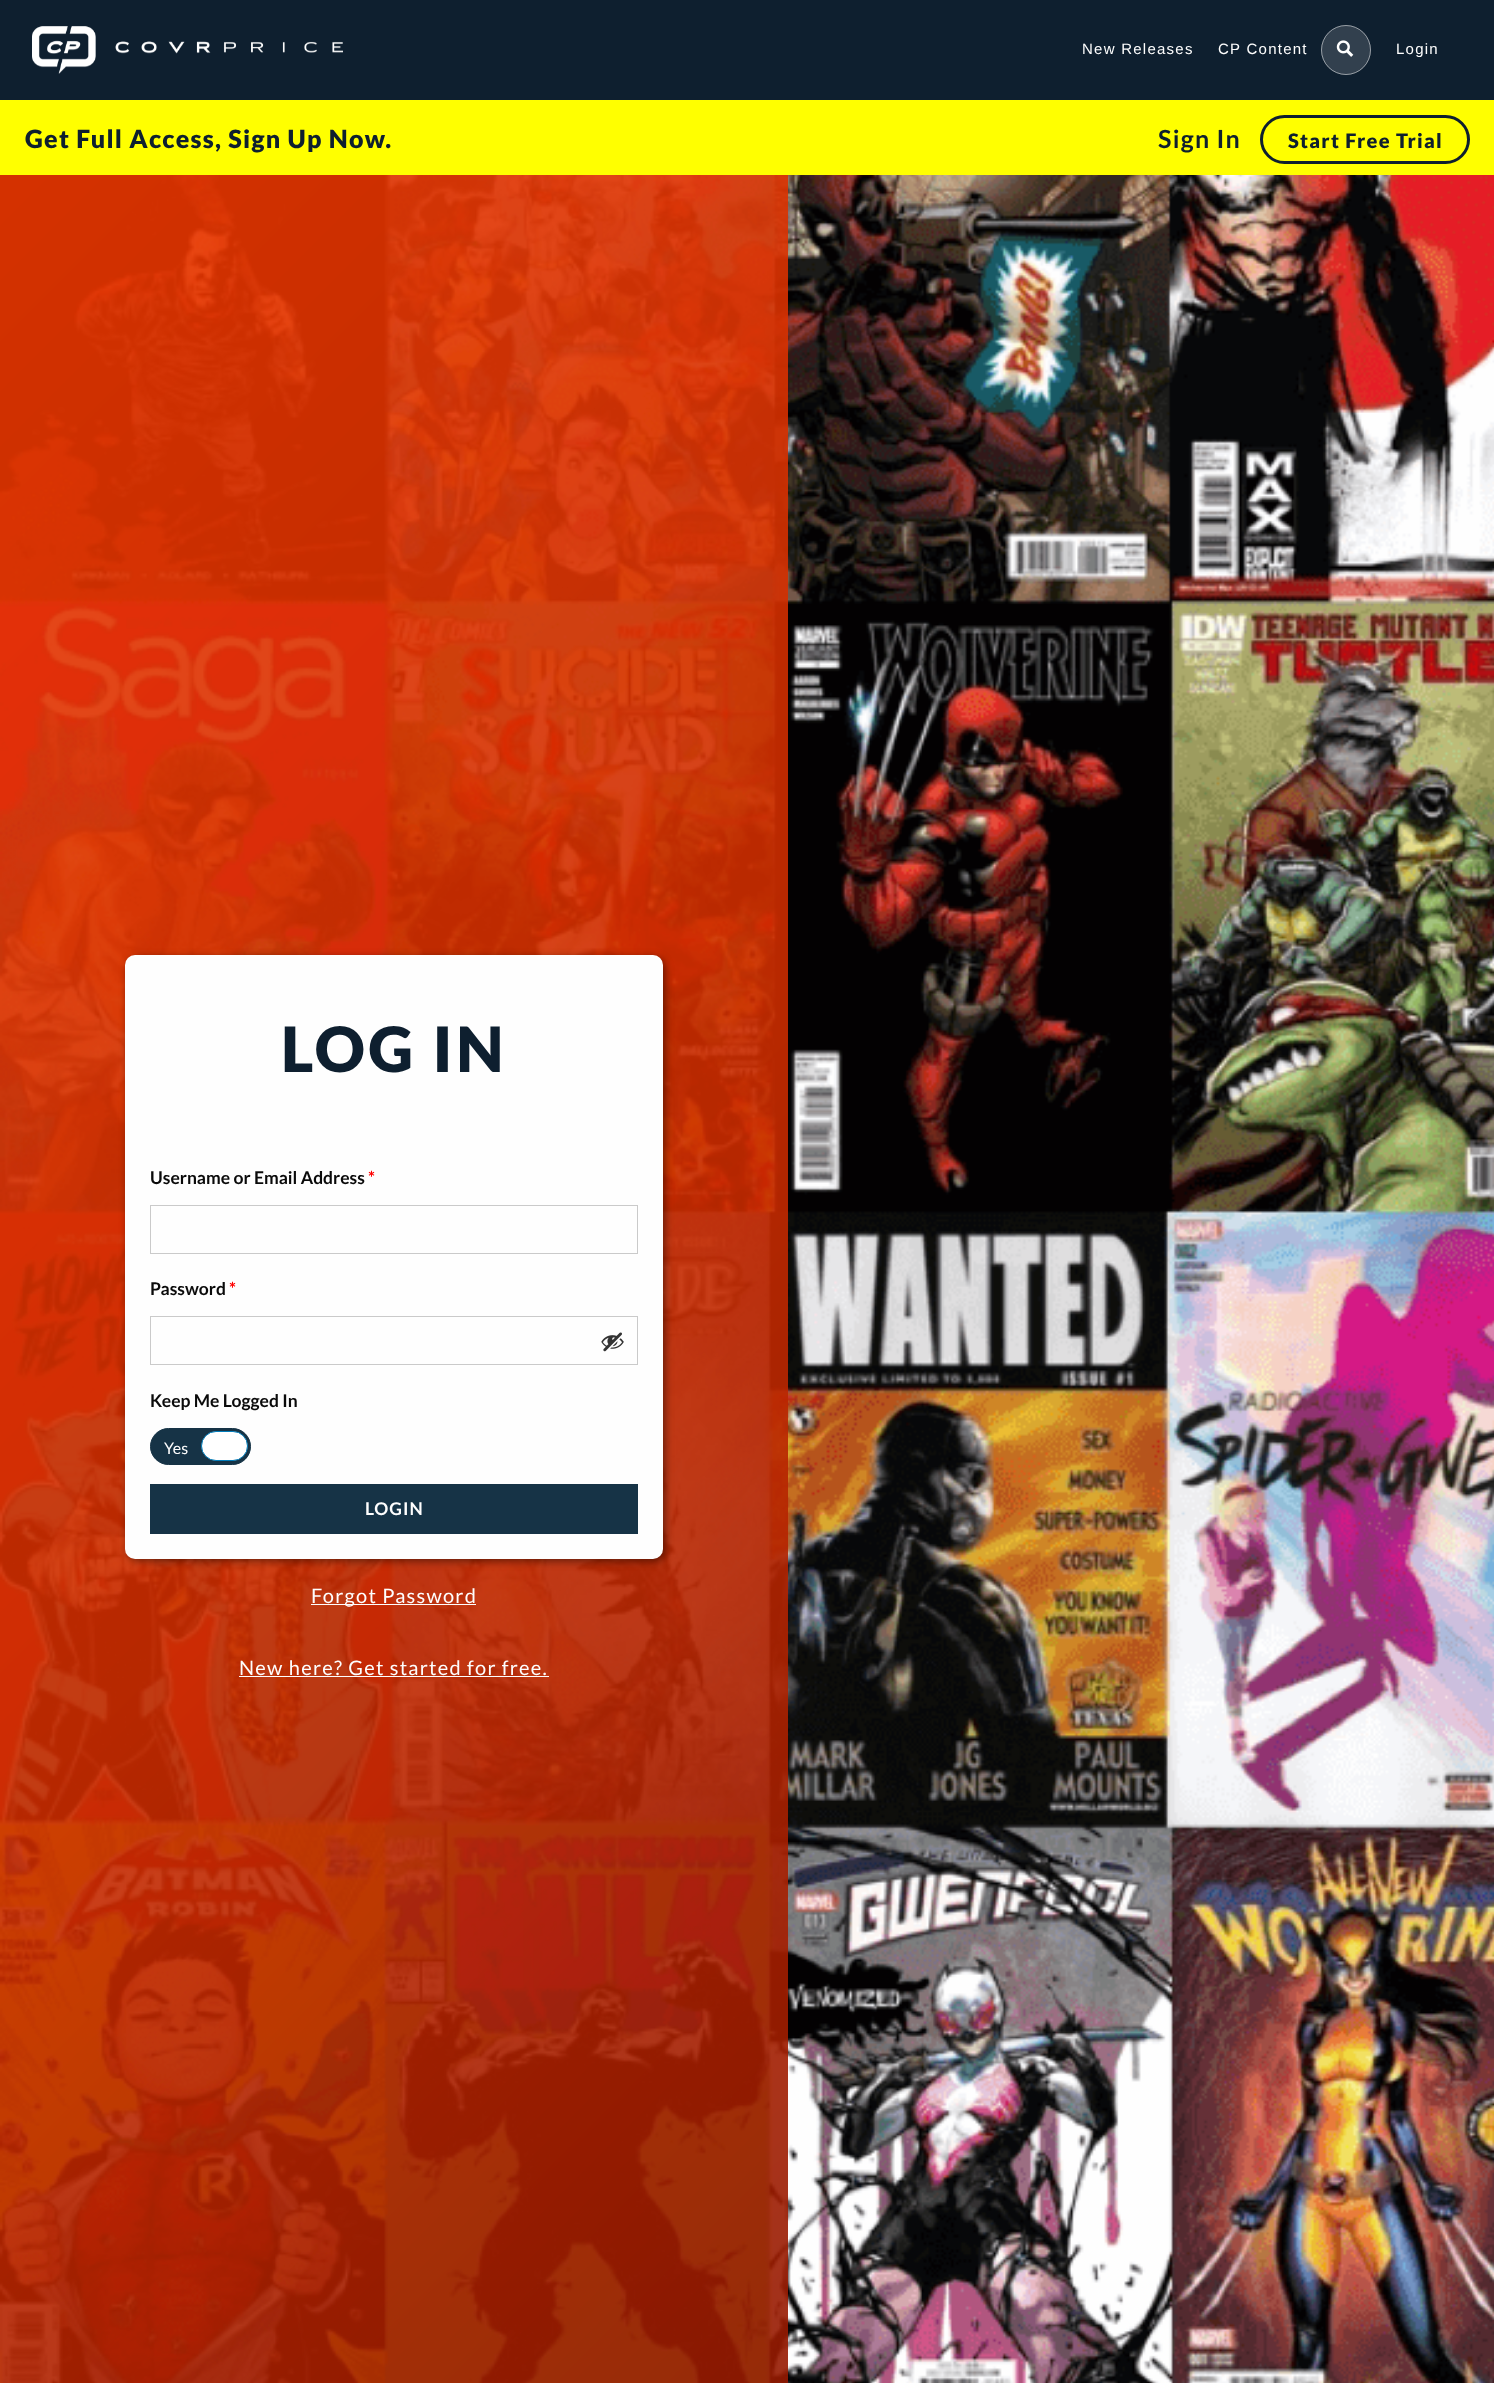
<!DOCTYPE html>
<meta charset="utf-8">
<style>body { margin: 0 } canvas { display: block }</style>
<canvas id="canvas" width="1494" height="2383"></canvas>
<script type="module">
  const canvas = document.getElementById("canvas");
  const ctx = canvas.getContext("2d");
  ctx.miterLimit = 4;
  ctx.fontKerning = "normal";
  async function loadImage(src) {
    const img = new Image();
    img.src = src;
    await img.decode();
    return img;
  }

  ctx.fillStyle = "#ffffff";
  ctx.fillRect(0, 0, 1494, 2383);
  ctx.fillStyle = "#0e1f2f";
  ctx.fillRect(0, 0, 1494, 100);
  ctx.drawImage(await loadImage("img1.png"), 32, 26, 311, 48);
  ctx.letterSpacing = "1.25px";
  ctx.font = "15px Liberation Sans";
  ctx.fillStyle = "#fefefe";
  ctx.fillText("New Releases", 1082, 54);
  ctx.fillText("CP Content", 1218, 54);
  ctx.fillStyle = "#32404e";
  ctx.beginPath();
  ctx.arc(1346, 50, 25, 0, Math.PI * 2);
  ctx.fill();
  ctx.drawImage(await loadImage("img2.png"), 1336, 40, 18, 17);
  ctx.beginPath();
  ctx.arc(1346, 50, 24.5, 0, Math.PI * 2);
  ctx.strokeStyle = "rgba(254, 254, 254, 0.5)";
  ctx.stroke();
  ctx.fillStyle = "#fefefe";
  ctx.fillText("Login", 1396, 54);
  ctx.fillStyle = "#ffff00";
  ctx.fillRect(0, 100, 1494, 75);
  ctx.font = "900 25px Lato";
  ctx.fillStyle = "#0e1f2f";
  ctx.fillText("Get Full Access, Sign Up Now.", 25, 148);
  ctx.font = "bold 25px Lato";
  ctx.fillText("Sign In", 1158, 148);
  ctx.beginPath();
  ctx.roundRect(1261.5, 116.5, 207, 46, 23);
  ctx.strokeStyle = "#0e1f2f";
  ctx.lineWidth = 3;
  ctx.stroke();
  ctx.font = "900 20px Lato";
  ctx.fillText("Start Free Trial", 1288, 148);
  ctx.drawImage(await loadImage("img3.png"), 0, 175, 1494, 2208);
  ctx.fillStyle = "rgba(0, 0, 0, 0.5)";
  ctx.filter = "blur(4px)";
  ctx.beginPath();
  ctx.roundRect(128, 958, 537, 603, 10);
  ctx.fill();
  ctx.filter = "none";
  ctx.fillStyle = "#fefefe";
  ctx.beginPath();
  ctx.roundRect(125, 955, 538, 604, 10);
  ctx.fill();
  ctx.letterSpacing = "3.75px";
  ctx.font = "900 62.5px Lato";
  ctx.fillStyle = "#0e1f2f";
  ctx.fillText("LOG IN", 281, 1072);
  ctx.letterSpacing = "0px";
  ctx.font = "bold 17.5px Lato";
  ctx.fillStyle = "#0a0a0a";
  ctx.fillText("Username or Email Address", 150, 1184);
  ctx.fillStyle = "#ff0000";
  ctx.fillText("*", 368, 1184);
  ctx.strokeStyle = "#cacaca";
  ctx.lineWidth = 1;
  ctx.strokeRect(150.5, 1205.5, 487, 48);
  ctx.fillStyle = "#0a0a0a";
  ctx.fillText("Password", 150, 1295);
  ctx.fillStyle = "#ff0000";
  ctx.fillText("*", 229, 1295);
  ctx.strokeRect(150.5, 1316.5, 487, 48);
  ctx.drawImage(await loadImage("img4.png"), 601, 1332, 23, 20);
  ctx.fillStyle = "#0a0a0a";
  ctx.fillText("Keep Me Logged In", 150, 1407);
  ctx.fillStyle = "#163346";
  ctx.beginPath();
  ctx.roundRect(150.5, 1428.5, 100, 36, 18);
  ctx.fill();
  ctx.strokeStyle = "#163346";
  ctx.stroke();
  ctx.font = "16px Lato";
  ctx.fillStyle = "#fefefe";
  ctx.fillText("Yes", 164, 1454);
  ctx.fillStyle = "#ffffff";
  ctx.beginPath();
  ctx.roundRect(201.5, 1431.5, 46, 29, 14.5);
  ctx.fill();
  ctx.strokeStyle = "#007cba";
  ctx.stroke();
  ctx.fillStyle = "#163346";
  ctx.fillRect(150, 1484, 488, 50);
  ctx.letterSpacing = "1px";
  ctx.font = "bold 17.5px Lato";
  ctx.fillStyle = "#fefefe";
  ctx.fillText("LOGIN", 365, 1515);
  ctx.fillRect(311, 1604, 165, 1);
  ctx.letterSpacing = "1.25px";
  ctx.font = "20px Lato";
  ctx.fillText("Forgot Password", 311, 1603);
  ctx.fillText("New here? Get started for free.", 239, 1675);
  ctx.fillRect(239, 1676, 310, 1);
</script>
